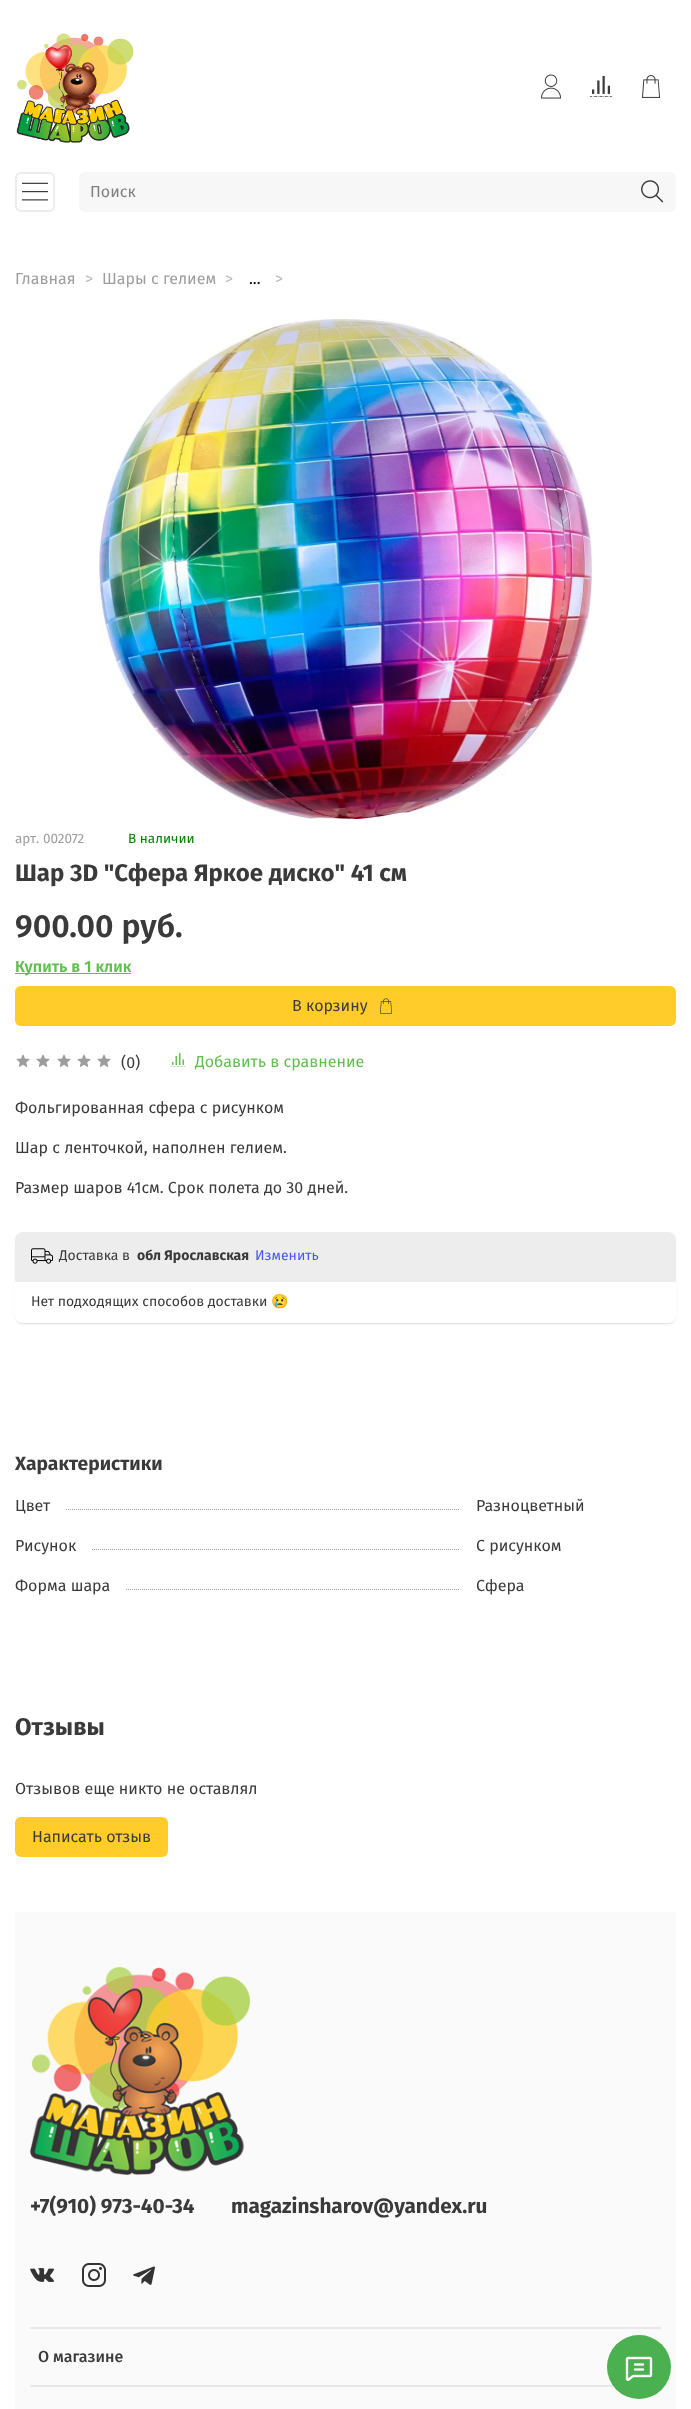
<!DOCTYPE html>
<meta charset="utf-8">
<style>body { margin: 0 } canvas { display: block }</style>
<canvas id="canvas" width="691" height="2409"></canvas>
<script type="module">
  const canvas = document.getElementById("canvas");
  const ctx = canvas.getContext("2d");
  ctx.miterLimit = 4;
  ctx.fontKerning = "normal";
  async function loadImage(src) {
    const img = new Image();
    img.src = src;
    await img.decode();
    return img;
  }

  ctx.fillStyle = "#ffffff";
  ctx.fillRect(0, 0, 691, 2409);
  ctx.drawImage(await loadImage("img1.png"), 16, 33, 118, 110);
  ctx.drawImage(await loadImage("img2.png"), 541, 74, 20, 25);
  ctx.drawImage(await loadImage("img3.png"), 589, 75, 24, 22);
  ctx.drawImage(await loadImage("img4.png"), 642, 75, 18, 23);
  ctx.beginPath();
  ctx.roundRect(16, 173, 38, 38, 5);
  ctx.strokeStyle = "#ededed";
  ctx.lineWidth = 2;
  ctx.stroke();
  ctx.drawImage(await loadImage("img5.png"), 22, 182, 26, 19);
  ctx.fillStyle = "#f7f7f7";
  ctx.beginPath();
  ctx.roundRect(79, 172, 597, 40, 6);
  ctx.fill();
  ctx.font = "16px Fira Sans";
  ctx.fillStyle = "#808080";
  ctx.fillText("Поиск", 90, 197);
  ctx.drawImage(await loadImage("img6.png"), 641, 180, 23, 23);
  ctx.fillStyle = "#9d9d9d";
  ctx.fillText("Главная", 15, 284);
  ctx.fillStyle = "#bababa";
  ctx.fillText(">", 85, 284);
  ctx.fillStyle = "#9d9d9d";
  ctx.fillText("Шары с гелием", 102, 284);
  ctx.fillStyle = "#bababa";
  ctx.fillText(">", 225, 284);
  ctx.fillText(">", 275, 284);
  ctx.fillStyle = "#000000";
  ctx.fillText("...", 249, 284);
  ctx.drawImage(await loadImage("img7.png"), 99, 319, 493, 500);
  ctx.font = "13.5px Fira Sans";
  ctx.fillStyle = "#9d9d9d";
  ctx.fillText("арт. 002072", 15, 843);
  ctx.fillStyle = "#008000";
  ctx.fillText("В наличии", 128, 843);
  ctx.font = "bold 24px Fira Sans";
  ctx.fillStyle = "#3a3a3a";
  ctx.fillText("Шар 3D \"Сфера Яркое диско\" 41 см", 15, 881);
  ctx.font = "600 32px Fira Sans";
  ctx.fillText("900.00 руб.", 15, 937);
  ctx.fillStyle = "#62be4e";
  ctx.fillRect(15, 973, 116, 1);
  ctx.font = "600 16px Fira Sans";
  ctx.fillText("Купить в 1 клик", 15, 972);
  ctx.fillStyle = "#ffcc29";
  ctx.beginPath();
  ctx.roundRect(15, 986, 661, 40, 6);
  ctx.fill();
  ctx.font = "16px Fira Sans";
  ctx.fillStyle = "#3a3a3a";
  ctx.fillText("В корзину", 292, 1011);
  ctx.drawImage(await loadImage("img8.png"), 380, 998, 12, 16);
  ctx.drawImage(await loadImage("img9.png"), 16, 1054, 14, 13);
  ctx.drawImage(await loadImage("img9.png"), 36, 1054, 14, 13);
  ctx.drawImage(await loadImage("img9.png"), 57, 1054, 14, 13);
  ctx.drawImage(await loadImage("img9.png"), 77, 1054, 14, 13);
  ctx.drawImage(await loadImage("img9.png"), 97, 1054, 14, 13);
  ctx.fillText("(0)", 121, 1068);
  ctx.drawImage(await loadImage("img10.png"), 170, 1052, 16, 15);
  ctx.fillStyle = "#62be4e";
  ctx.fillText("Добавить в сравнение", 195, 1067);
  ctx.fillStyle = "#3a3a3a";
  ctx.fillText("Фольгированная сфера с рисунком", 15, 1113);
  ctx.fillText("Шар с ленточкой, наполнен гелием.", 15, 1153);
  ctx.fillText("Размер шаров 41см. Срок полета до 30 дней.", 15, 1193);
  ctx.save();
  ctx.beginPath();
  ctx.moveTo(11, 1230);
  ctx.lineTo(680, 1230);
  ctx.lineTo(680, 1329);
  ctx.lineTo(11, 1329);
  ctx.closePath();
  ctx.moveTo(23, 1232);
  ctx.lineTo(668, 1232);
  ctx.bezierCurveTo(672.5, 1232, 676, 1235.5, 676, 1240);
  ctx.lineTo(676, 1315);
  ctx.bezierCurveTo(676, 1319.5, 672.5, 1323, 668, 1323);
  ctx.lineTo(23, 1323);
  ctx.bezierCurveTo(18.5, 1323, 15, 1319.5, 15, 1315);
  ctx.lineTo(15, 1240);
  ctx.bezierCurveTo(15, 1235.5, 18.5, 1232, 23, 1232);
  ctx.closePath();
  ctx.clip("evenodd");
  ctx.fillStyle = "rgba(0, 0, 0, 0.05)";
  ctx.filter = "blur(1px)";
  ctx.beginPath();
  ctx.roundRect(15, 1234, 661, 91, 8);
  ctx.fill();
  ctx.filter = "none";
  ctx.restore();
  ctx.save();
  ctx.beginPath();
  ctx.moveTo(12, 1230);
  ctx.lineTo(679, 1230);
  ctx.lineTo(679, 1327);
  ctx.lineTo(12, 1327);
  ctx.closePath();
  ctx.moveTo(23, 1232);
  ctx.lineTo(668, 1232);
  ctx.bezierCurveTo(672.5, 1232, 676, 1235.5, 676, 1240);
  ctx.lineTo(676, 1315);
  ctx.bezierCurveTo(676, 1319.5, 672.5, 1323, 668, 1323);
  ctx.lineTo(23, 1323);
  ctx.bezierCurveTo(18.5, 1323, 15, 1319.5, 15, 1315);
  ctx.lineTo(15, 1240);
  ctx.bezierCurveTo(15, 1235.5, 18.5, 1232, 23, 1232);
  ctx.closePath();
  ctx.clip("evenodd");
  ctx.fillStyle = "rgba(0, 0, 0, 0.05)";
  ctx.filter = "blur(0.5px)";
  ctx.beginPath();
  ctx.roundRect(15, 1233, 661, 91, 8);
  ctx.fill();
  ctx.filter = "none";
  ctx.restore();
  ctx.fillStyle = "#ededed";
  ctx.beginPath();
  ctx.roundRect(15, 1232, 661, 50, [8, 8, 0, 0]);
  ctx.fill();
  ctx.drawImage(await loadImage("img11.png"), 31, 1248, 22, 16);
  ctx.font = "14px Fira Sans";
  ctx.fillStyle = "#3a3a3a";
  ctx.fillText("Доставка в", 59, 1260);
  ctx.font = "bold 14px Fira Sans";
  ctx.fillText("обл Ярославская", 137, 1260);
  ctx.font = "14px Fira Sans";
  ctx.fillStyle = "#4657ef";
  ctx.fillText("Изменить", 255, 1260);
  ctx.fillStyle = "#3a3a3a";
  ctx.fillText("Нет подходящих способов доставки", 31, 1306);
  ctx.font = "14px Noto Color Emoji";
  ctx.fillText("😢", 271, 1306);
  ctx.font = "bold 19.25px Fira Sans";
  ctx.fillText("Характеристики", 15, 1470);
  ctx.font = "16px Fira Sans";
  ctx.fillText("Цвет", 15, 1511);
  ctx.beginPath();
  ctx.moveTo(66, 1509.5);
  ctx.lineTo(460, 1509.5);
  ctx.strokeStyle = "#9d9d9d";
  ctx.lineWidth = 1;
  ctx.setLineDash([1, 1]);
  ctx.stroke();
  ctx.fillText("Разноцветный", 476, 1511);
  ctx.fillText("Рисунок", 15, 1551);
  ctx.beginPath();
  ctx.moveTo(92, 1549.5);
  ctx.lineTo(460, 1549.5);
  ctx.stroke();
  ctx.fillText("С рисунком", 476, 1551);
  ctx.fillText("Форма шара", 15, 1591);
  ctx.beginPath();
  ctx.moveTo(126, 1589.5);
  ctx.lineTo(460, 1589.5);
  ctx.stroke();
  ctx.fillText("Сфера", 476, 1591);
  ctx.font = "bold 24px Fira Sans";
  ctx.fillText("Отзывы", 15, 1735);
  ctx.font = "16px Fira Sans";
  ctx.fillText("Отзывов еще никто не оставлял", 15, 1794);
  ctx.fillStyle = "#ffcc29";
  ctx.beginPath();
  ctx.roundRect(15, 1817, 153, 40, 6);
  ctx.fill();
  ctx.fillStyle = "#3a3a3a";
  ctx.fillText("Написать отзыв", 32, 1842);
  ctx.fillStyle = "#fafafa";
  ctx.fillRect(15, 1912, 661, 497);
  ctx.drawImage(await loadImage("img12.png"), 30, 1967, 220, 208);
  ctx.font = "bold 20.75px Fira Sans";
  ctx.fillStyle = "#3a3a3a";
  ctx.fillText("+7(910) 973-40-34", 30, 2213);
  ctx.fillText("magazinsharov@yandex.ru", 231, 2213);
  ctx.drawImage(await loadImage("img13.png"), 30, 2268, 24, 14);
  ctx.drawImage(await loadImage("img14.png"), 82, 2263, 24, 24);
  ctx.drawImage(await loadImage("img15.png"), 133, 2266, 22, 19);
  ctx.fillStyle = "#e8e8e8";
  ctx.fillRect(30, 2327, 631, 2);
  ctx.font = "500 16px Fira Sans";
  ctx.fillStyle = "#3a3a3a";
  ctx.fillText("О магазине", 38, 2362);
  ctx.fillStyle = "#e8e8e8";
  ctx.fillRect(30, 2385, 584, 2);
  ctx.fillStyle = "#4bb04f";
  ctx.beginPath();
  ctx.arc(639, 2367, 32, 0, Math.PI * 2);
  ctx.fill();
  ctx.drawImage(await loadImage("img16.png"), 625, 2356, 28, 25);
</script>
